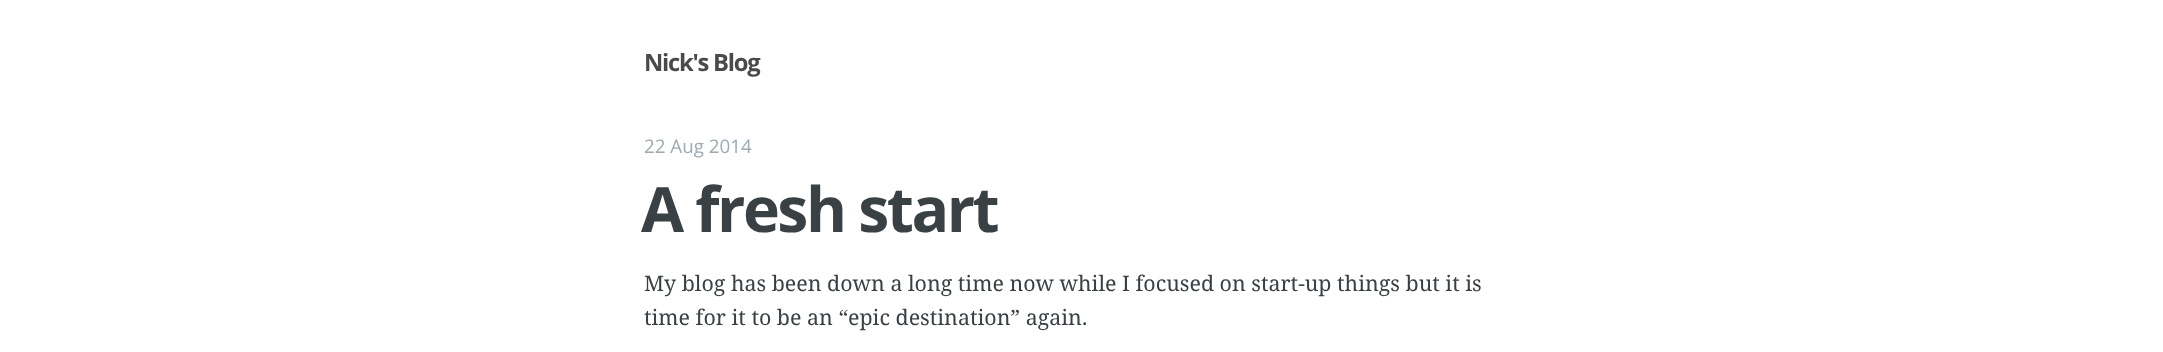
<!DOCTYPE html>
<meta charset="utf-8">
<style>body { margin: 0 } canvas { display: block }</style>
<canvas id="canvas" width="2163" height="352"></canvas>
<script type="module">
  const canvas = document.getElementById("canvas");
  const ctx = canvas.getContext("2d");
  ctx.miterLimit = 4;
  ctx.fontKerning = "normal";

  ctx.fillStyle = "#ffffff";
  ctx.fillRect(0, 0, 2163, 352);
  ctx.letterSpacing = "-1.25px";
  ctx.font = "bold 23.75px Open Sans";
  ctx.fillStyle = "#4a4a4a";
  ctx.fillText("Nick's Blog", 644, 71);
  ctx.letterSpacing = "0px";
  ctx.font = "18.75px Open Sans";
  ctx.fillStyle = "#9eabb3";
  ctx.fillText("22 Aug 2014", 644, 153);
  ctx.letterSpacing = "-2.5px";
  ctx.font = "bold 62.5px Open Sans";
  ctx.fillStyle = "#3a4145";
  ctx.fillText("A fresh start", 641, 232);
  ctx.letterSpacing = "0px";
  ctx.font = "21.4px Noto Serif";
  ctx.fillText("My blog has been down a long time now while I focused on start-up things but it is", 644, 291);
  ctx.fillText("time for it to be an “epic destination” again.", 644, 325);
</script>
